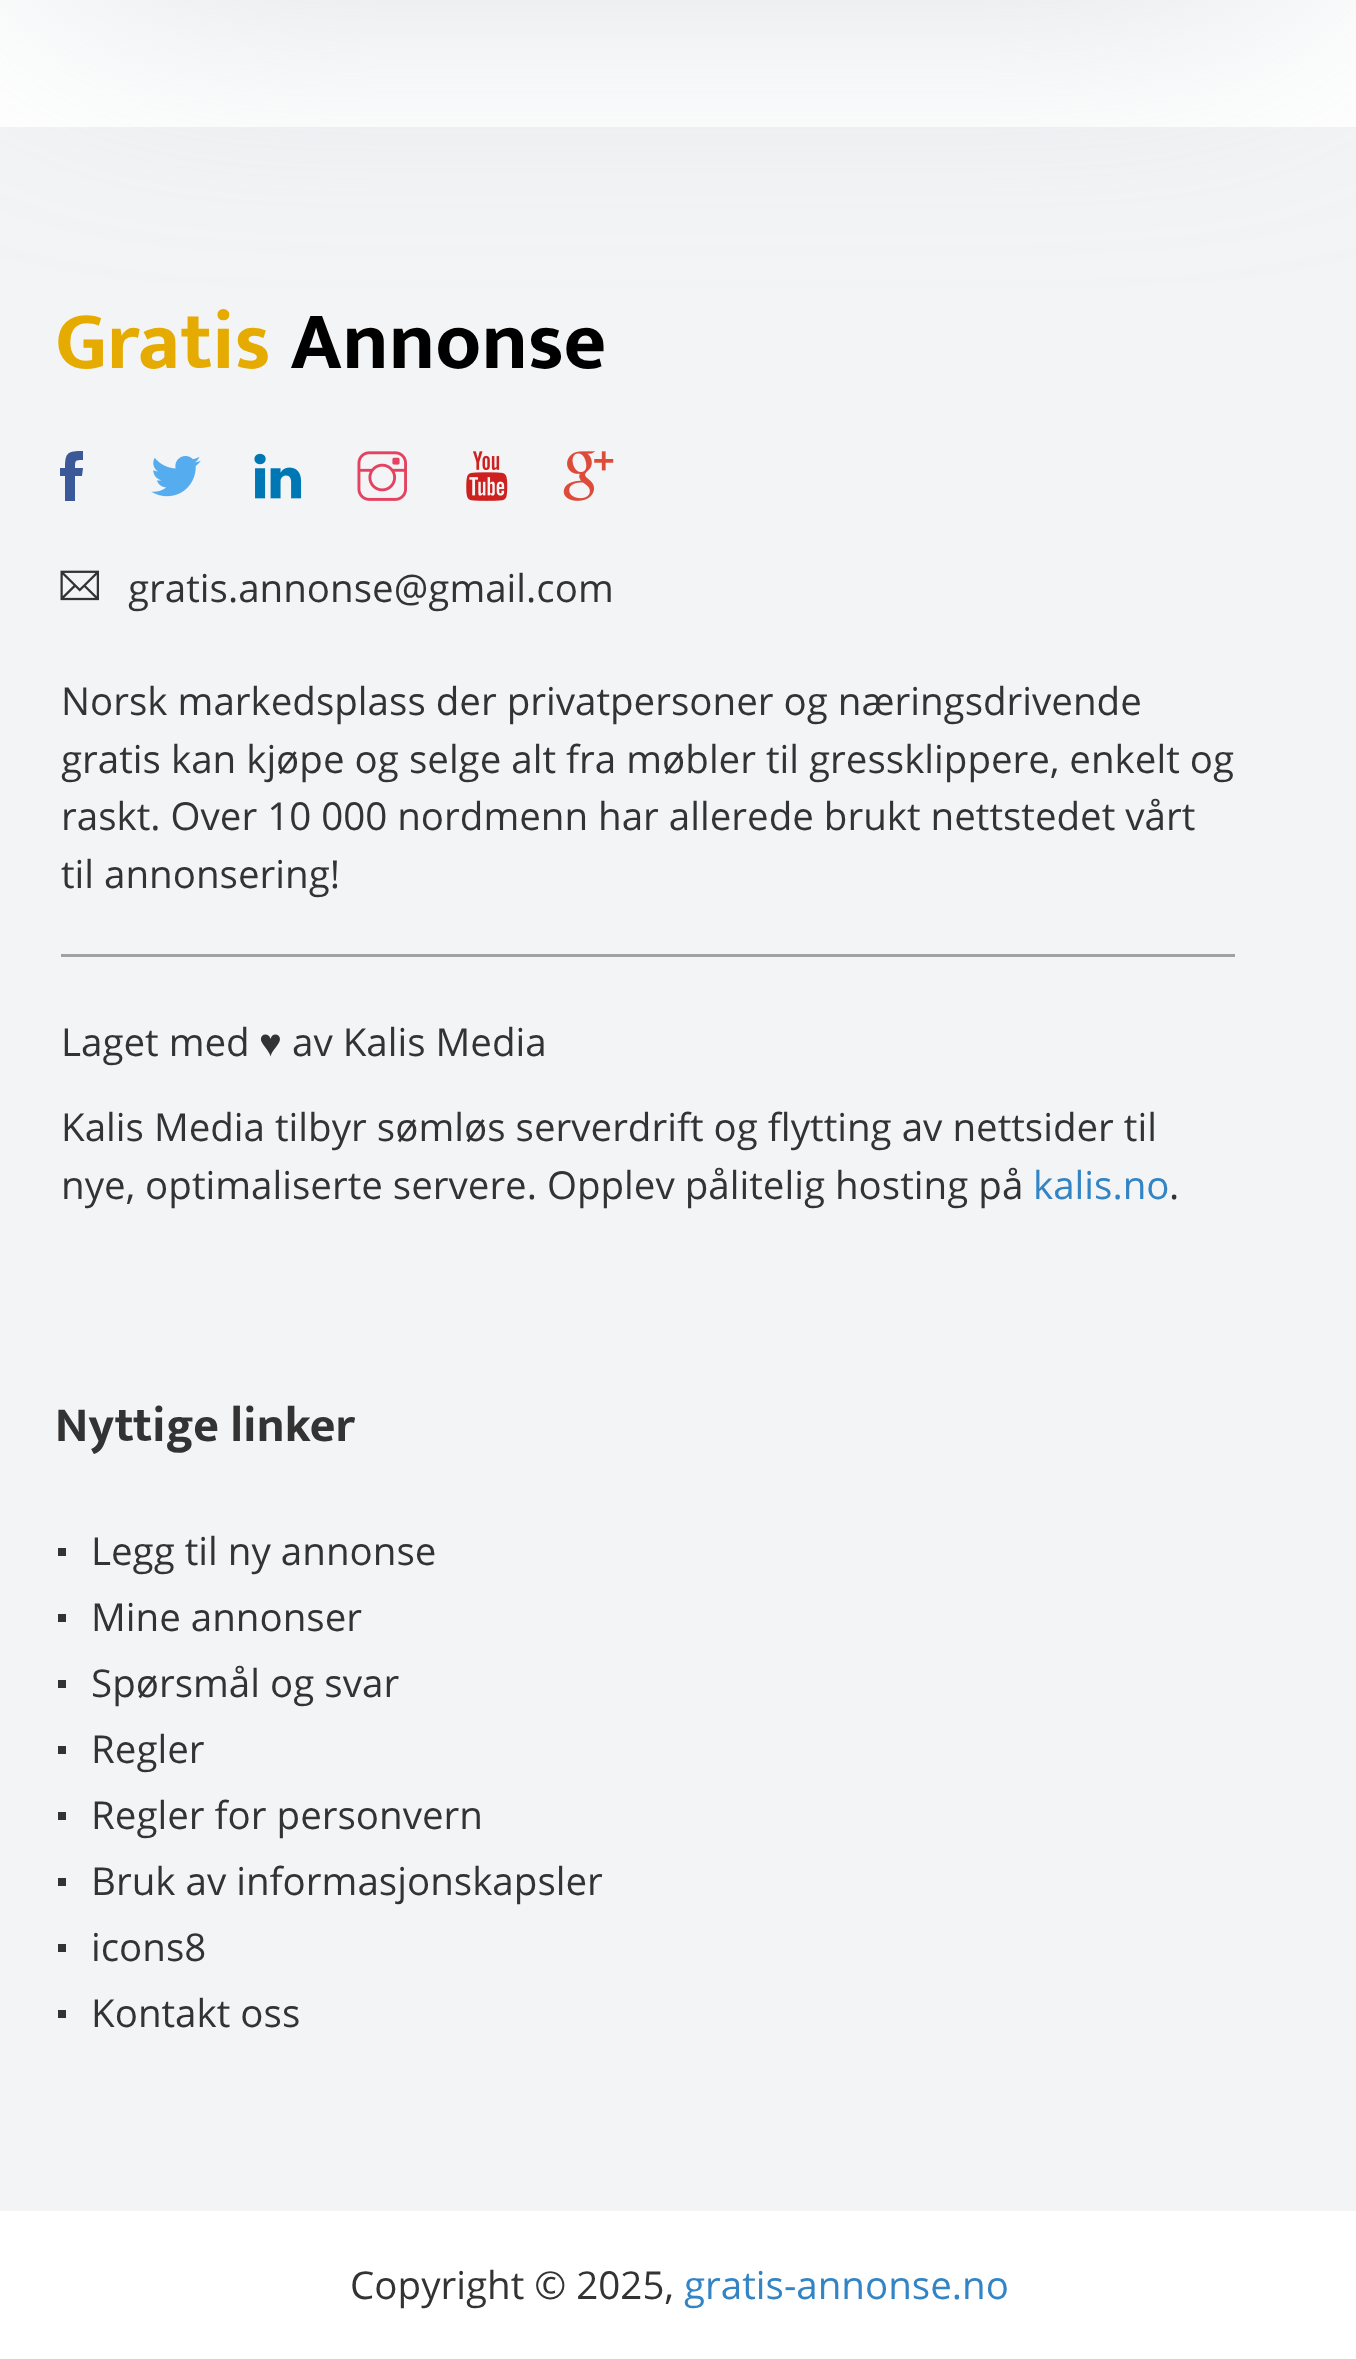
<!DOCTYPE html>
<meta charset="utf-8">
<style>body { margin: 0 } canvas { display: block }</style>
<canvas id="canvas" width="1356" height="2359"></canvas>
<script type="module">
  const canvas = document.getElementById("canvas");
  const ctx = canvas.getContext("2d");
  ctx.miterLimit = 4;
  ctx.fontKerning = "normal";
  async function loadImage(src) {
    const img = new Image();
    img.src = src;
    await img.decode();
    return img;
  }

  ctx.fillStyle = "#ffffff";
  ctx.fillRect(0, 0, 1356, 2359);
  ctx.fillStyle = "#f3f4f6";
  ctx.fillRect(0, 127, 1356, 2084);
  ctx.fillStyle = "rgba(171, 181, 189, 0.5)";
  ctx.filter = "blur(137.5px)";
  ctx.beginPath();
  ctx.roundRect(55, -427, 1249, 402, 14);
  ctx.fill();
  ctx.filter = "none";
  ctx.font = "bold 82.5px Mukta";
  ctx.fillStyle = "#e6ab00";
  ctx.fillText("Gratis", 55, 368);
  ctx.fillStyle = "#000000";
  ctx.fillText("Annonse", 290, 368);
  ctx.fillStyle = "#3b5999";
  ctx.beginPath();
  ctx.moveTo(83, 468);
  ctx.lineTo(82, 476);
  ctx.lineTo(75, 476);
  ctx.lineTo(75, 501);
  ctx.lineTo(65, 501);
  ctx.lineTo(65, 476);
  ctx.lineTo(60, 476);
  ctx.lineTo(60, 468);
  ctx.lineTo(65, 468);
  ctx.bezierCurveTo(65, 452, 68, 451, 83, 451);
  ctx.lineTo(83, 460);
  ctx.bezierCurveTo(75, 460, 75, 460, 75, 468);
  ctx.closePath();
  ctx.fill();
  ctx.drawImage(await loadImage("img1.png"), 151, 456, 50, 41);
  ctx.drawImage(await loadImage("img2.png"), 254, 453, 48, 46);
  ctx.drawImage(await loadImage("img3.png"), 357, 451, 50, 50);
  ctx.drawImage(await loadImage("img4.png"), 466, 451, 42, 50);
  ctx.drawImage(await loadImage("img5.png"), 563, 451, 51, 50);
  ctx.drawImage(await loadImage("img6.png"), 60, 570, 39, 31);
  ctx.font = "38.5px Open Sans";
  ctx.fillStyle = "#333333";
  ctx.fillText("gratis.annonse@gmail.com", 128, 602);
  ctx.fillText("Norsk markedsplass der privatpersoner og næringsdrivende", 61, 715);
  ctx.fillText("gratis kan kjøpe og selge alt fra møbler til gressklippere, enkelt og", 61, 773);
  ctx.fillText("raskt. Over 10 000 nordmenn har allerede brukt nettstedet vårt", 61, 830);
  ctx.fillText("til annonsering!", 61, 888);
  ctx.fillStyle = "#a1a1a1";
  ctx.fillRect(61, 954, 1174, 3);
  ctx.fillStyle = "#333333";
  ctx.fillText("Laget med", 61, 1056);
  ctx.font = "38.5px Liberation Sans";
  ctx.fillText("♥", 259, 1056);
  ctx.font = "38.5px Open Sans";
  ctx.fillText("av Kalis Media", 292, 1056);
  ctx.fillText("Kalis Media tilbyr sømløs serverdrift og flytting av nettsider til", 61, 1141);
  ctx.fillText("nye, optimaliserte servere. Opplev pålitelig hosting på", 61, 1199);
  ctx.fillStyle = "#3284c5";
  ctx.fillText("kalis.no", 1033, 1199);
  ctx.fillStyle = "#333333";
  ctx.fillText(".", 1169, 1199);
  ctx.font = "bold 49.5px Mukta";
  ctx.fillText("Nyttige linker", 55, 1441);
  ctx.fillRect(58, 1548, 8, 8);
  ctx.font = "38.5px Open Sans";
  ctx.fillText("Legg til ny annonse", 91, 1565);
  ctx.fillRect(58, 1614, 8, 8);
  ctx.fillText("Mine annonser", 91, 1631);
  ctx.fillRect(58, 1680, 8, 8);
  ctx.fillText("Spørsmål og svar", 91, 1697);
  ctx.fillRect(58, 1746, 8, 8);
  ctx.fillText("Regler", 91, 1763);
  ctx.fillRect(58, 1812, 8, 8);
  ctx.fillText("Regler for personvern", 91, 1829);
  ctx.fillRect(58, 1878, 8, 8);
  ctx.fillText("Bruk av informasjonskapsler", 91, 1895);
  ctx.fillRect(58, 1944, 8, 8);
  ctx.fillText("icons8", 91, 1961);
  ctx.fillRect(58, 2010, 8, 8);
  ctx.fillText("Kontakt oss", 91, 2027);
  ctx.fillText("Copyright © 2025,", 350, 2299);
  ctx.fillStyle = "#3284c5";
  ctx.fillText("gratis-annonse.no", 684, 2299);
</script>
